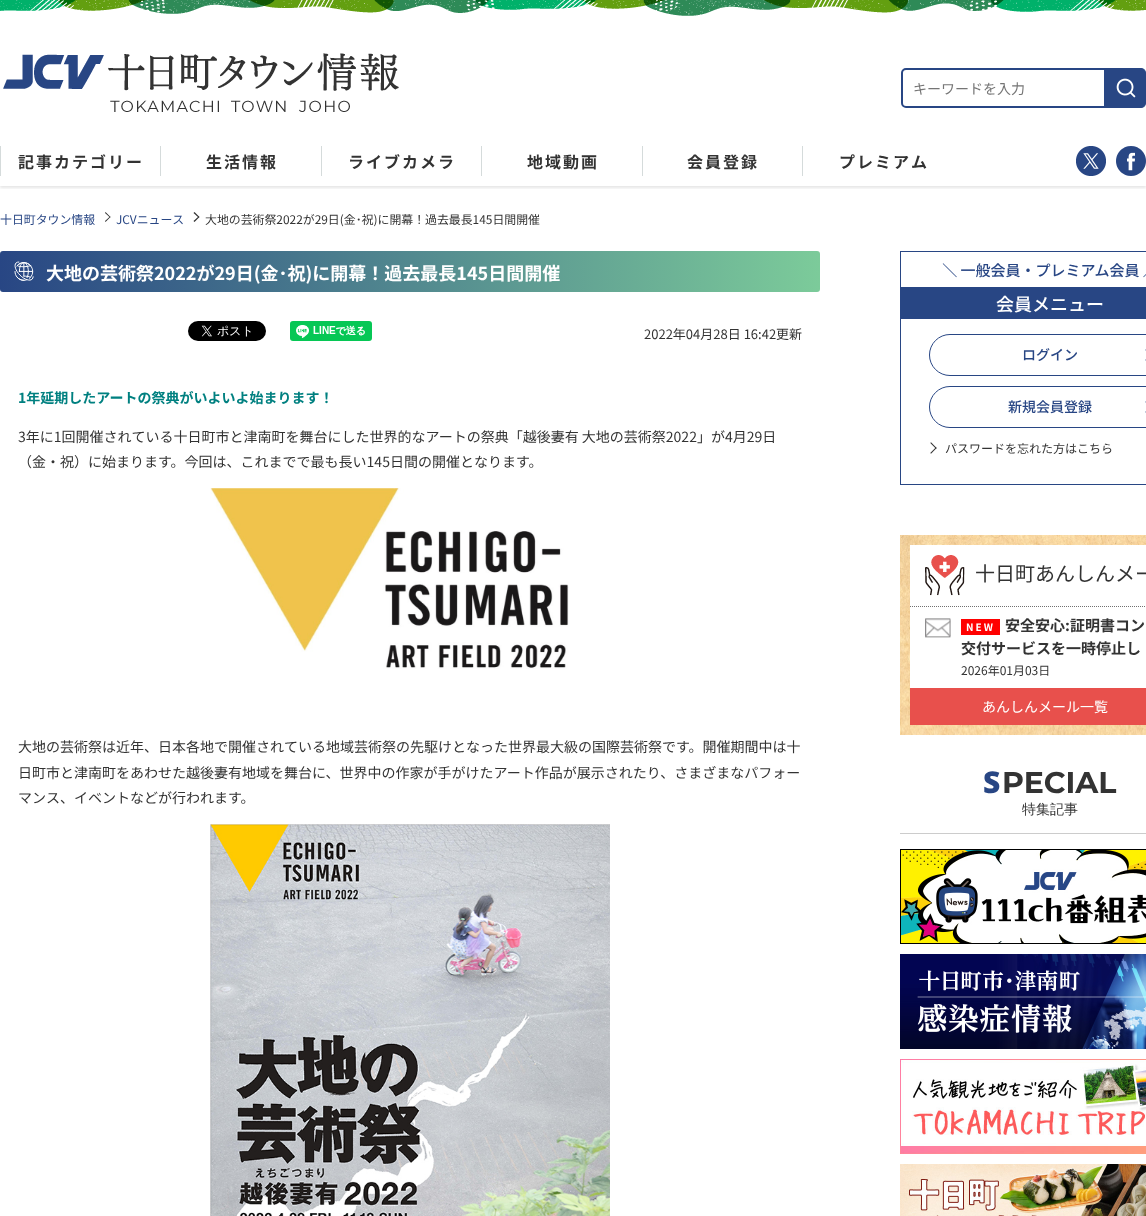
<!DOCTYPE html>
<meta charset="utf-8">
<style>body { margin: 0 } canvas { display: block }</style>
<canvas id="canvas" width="1146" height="1216"></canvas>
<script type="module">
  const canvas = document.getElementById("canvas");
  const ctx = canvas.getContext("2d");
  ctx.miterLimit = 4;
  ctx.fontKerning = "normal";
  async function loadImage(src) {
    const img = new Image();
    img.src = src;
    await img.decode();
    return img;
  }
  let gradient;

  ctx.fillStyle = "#ffffff";
  ctx.fillRect(0, 0, 1146, 1216);
  ctx.drawImage(await loadImage("img1.png"), 0, 0, 1146, 16);
  ctx.save();
  ctx.beginPath();
  ctx.rect(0, 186, 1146, 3);
  ctx.clip();
  ctx.fillStyle = "rgba(0, 0, 0, 0.1)";
  ctx.filter = "blur(1.5px)";
  ctx.beginPath();
  ctx.rect(0, 2, 1146, 186);
  ctx.fill();
  ctx.filter = "none";
  ctx.restore();
  ctx.drawImage(await loadImage("img2.png"), 3, 53, 396, 59);
  ctx.beginPath();
  ctx.roundRect(902, 69, 203, 38, [4, 0, 0, 4]);
  ctx.strokeStyle = "#284684";
  ctx.lineWidth = 2;
  ctx.stroke();
  ctx.font = "14px Noto Sans JP";
  ctx.fillStyle = "#757575";
  ctx.fillText("キーワードを入力", 913, 94);
  ctx.drawImage(await loadImage("img3.png"), 1106, 68, 40, 40);
  ctx.fillStyle = "#d5dbdb";
  ctx.fillRect(0, 146, 1, 30);
  ctx.letterSpacing = "2px";
  ctx.font = "bold 16px Noto Sans JP";
  ctx.fillStyle = "#333333";
  ctx.fillText("記事カテゴリー", 18, 168);
  ctx.fillStyle = "#d5dbdb";
  ctx.fillRect(160, 146, 1, 30);
  ctx.fillStyle = "#333333";
  ctx.fillText("生活情報", 206, 168);
  ctx.fillStyle = "#d5dbdb";
  ctx.fillRect(321, 146, 1, 30);
  ctx.fillStyle = "#333333";
  ctx.fillText("ライブカメラ", 348, 168);
  ctx.fillStyle = "#d5dbdb";
  ctx.fillRect(481, 146, 1, 30);
  ctx.fillStyle = "#333333";
  ctx.fillText("地域動画", 527, 168);
  ctx.fillStyle = "#d5dbdb";
  ctx.fillRect(642, 146, 1, 30);
  ctx.fillStyle = "#333333";
  ctx.fillText("会員登録", 687, 168);
  ctx.fillStyle = "#d5dbdb";
  ctx.fillRect(802, 146, 1, 30);
  ctx.fillStyle = "#333333";
  ctx.fillText("プレミアム", 839, 168);
  ctx.drawImage(await loadImage("img4.png"), 1076, 146, 30, 30);
  ctx.drawImage(await loadImage("img5.png"), 1116, 146, 30, 30);
  ctx.letterSpacing = "0px";
  ctx.font = "11.9px Noto Sans JP";
  ctx.fillStyle = "#284684";
  ctx.fillText("十日町タウン情報", 0, 224);
  ctx.fillStyle = "#333333";
  ctx.beginPath();
  ctx.moveTo(105.5, 212);
  ctx.lineTo(110.5, 217);
  ctx.lineTo(110, 217.5);
  ctx.lineTo(105, 213);
  ctx.closePath();
  ctx.fill();
  ctx.beginPath();
  ctx.moveTo(110, 216.5);
  ctx.lineTo(110.5, 217);
  ctx.lineTo(105.5, 222);
  ctx.lineTo(105, 221);
  ctx.closePath();
  ctx.fill();
  ctx.fillStyle = "#284684";
  ctx.fillText("JCVニュース", 116, 224);
  ctx.fillStyle = "#333333";
  ctx.beginPath();
  ctx.moveTo(194.5, 212);
  ctx.lineTo(199.5, 217);
  ctx.lineTo(198.5, 217.5);
  ctx.lineTo(193.5, 213);
  ctx.closePath();
  ctx.fill();
  ctx.beginPath();
  ctx.moveTo(198.5, 216.5);
  ctx.lineTo(199.5, 217);
  ctx.lineTo(194.5, 222);
  ctx.lineTo(193.5, 221);
  ctx.closePath();
  ctx.fill();
  ctx.fillText("大地の芸術祭2022が29日(金･祝)に開幕！過去最長145日間開催", 205, 224);
  gradient = ctx.createLinearGradient(0, 272, 820, 272);
  gradient.addColorStop(0, "#284684");
  gradient.addColorStop(1, "#7ccb9a");
  ctx.fillStyle = gradient;
  ctx.beginPath();
  ctx.roundRect(0, 251, 820, 41, 3);
  ctx.fill();
  ctx.drawImage(await loadImage("img6.png"), 14, 261, 20, 20);
  ctx.font = "bold 18px Noto Sans JP";
  ctx.fillStyle = "#ffffff";
  ctx.fillText("大地の芸術祭2022が29日(金･祝)に開幕！過去最長145日間開催", 46, 280);
  ctx.drawImage(await loadImage("img7.png"), 188, 321, 78, 20);
  ctx.drawImage(await loadImage("img8.png"), 290, 321, 82, 20);
  ctx.font = "13px Noto Sans JP";
  ctx.fillStyle = "#333333";
  ctx.fillText("2022年04月28日 16:42更新", 644, 339);
  ctx.font = "bold 14px Noto Sans JP";
  ctx.fillStyle = "#008080";
  ctx.fillText("1年延期したアートの祭典がいよいよ始まります！", 18, 403);
  ctx.font = "14px Noto Sans JP";
  ctx.fillStyle = "#333333";
  ctx.fillText("3年に1回開催されている十日町市と津南町を舞台にした世界的なアートの祭典「越後妻有 大地の芸術祭2022」が4月29日", 18, 442);
  ctx.fillText("（金・祝）に始まります。今回は、これまでで最も長い145日間の開催となります。", 18, 467);
  ctx.drawImage(await loadImage("img9.png"), 210, 488, 359, 181);
  ctx.fillText("大地の芸術祭は近年、日本各地で開催されている地域芸術祭の先駆けとなった世界最大級の国際芸術祭です。開催期間中は十", 18, 752);
  ctx.fillText("日町市と津南町をあわせた越後妻有地域を舞台に、世界中の作家が手がけたアート作品が展示されたり、さまざまなパフォー", 18, 778);
  ctx.fillText("マンス、イベントなどが行われます。", 18, 803);
  ctx.drawImage(await loadImage("img10.png"), 210, 824, 400, 392);
  ctx.drawImage(await loadImage("img11.png"), 900, 251, 246, 234);
  ctx.drawImage(await loadImage("img12.png"), 900, 535, 246, 200);
  ctx.fillStyle = "#ffffff";
  ctx.fillRect(910, 545, 236, 143);
  ctx.drawImage(await loadImage("img13.png"), 925, 555, 40, 41);
  ctx.font = "20px Noto Sans JP";
  ctx.fillStyle = "#333333";
  ctx.fillText("十日町あんしんメー", 975, 581);
  ctx.beginPath();
  ctx.moveTo(910, 606.5);
  ctx.lineTo(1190, 606.5);
  ctx.strokeStyle = "#707070";
  ctx.lineWidth = 1;
  ctx.setLineDash([1, 1]);
  ctx.stroke();
  ctx.drawImage(await loadImage("img14.png"), 925, 618, 26, 20);
  ctx.fillStyle = "#ff0000";
  ctx.fillRect(961, 619, 39, 16);
  ctx.letterSpacing = "2px";
  ctx.font = "bold 10px Noto Sans JP";
  ctx.fillStyle = "#ffffff";
  ctx.fillText("NEW", 966, 631);
  ctx.letterSpacing = "0px";
  ctx.font = "bold 15px Noto Sans JP";
  ctx.fillStyle = "#333333";
  ctx.fillText("安全安心:証明書コン", 1005, 631);
  ctx.fillText("交付サービスを一時停止し", 961, 654);
  ctx.font = "12px Noto Sans JP";
  ctx.fillText("2026年01月03日", 961, 675);
  ctx.fillStyle = "#e8504c";
  ctx.fillRect(910, 688, 236, 37);
  ctx.font = "14px Noto Sans JP";
  ctx.fillStyle = "#ffffff";
  ctx.fillText("あんしんメール一覧", 982, 712);
  ctx.font = "900 30px Noto Sans";
  ctx.fillStyle = "#284684";
  ctx.fillText("S", 983, 793);
  ctx.font = "bold 30px Montserrat";
  ctx.fillStyle = "#333333";
  ctx.fillText("PECIAL", 1002, 793);
  ctx.font = "500 14px WenQuanYi Zen Hei";
  ctx.fillText("特集記事", 1022, 814);
  ctx.fillStyle = "#cccccc";
  ctx.fillRect(900, 833, 246, 1);
  ctx.drawImage(await loadImage("img15.png"), 900, 849, 246, 95);
  ctx.drawImage(await loadImage("img16.png"), 900, 954, 246, 95);
  ctx.drawImage(await loadImage("img17.png"), 900, 1059, 246, 95);
  ctx.drawImage(await loadImage("img18.png"), 900, 1164, 246, 52);
</script>
